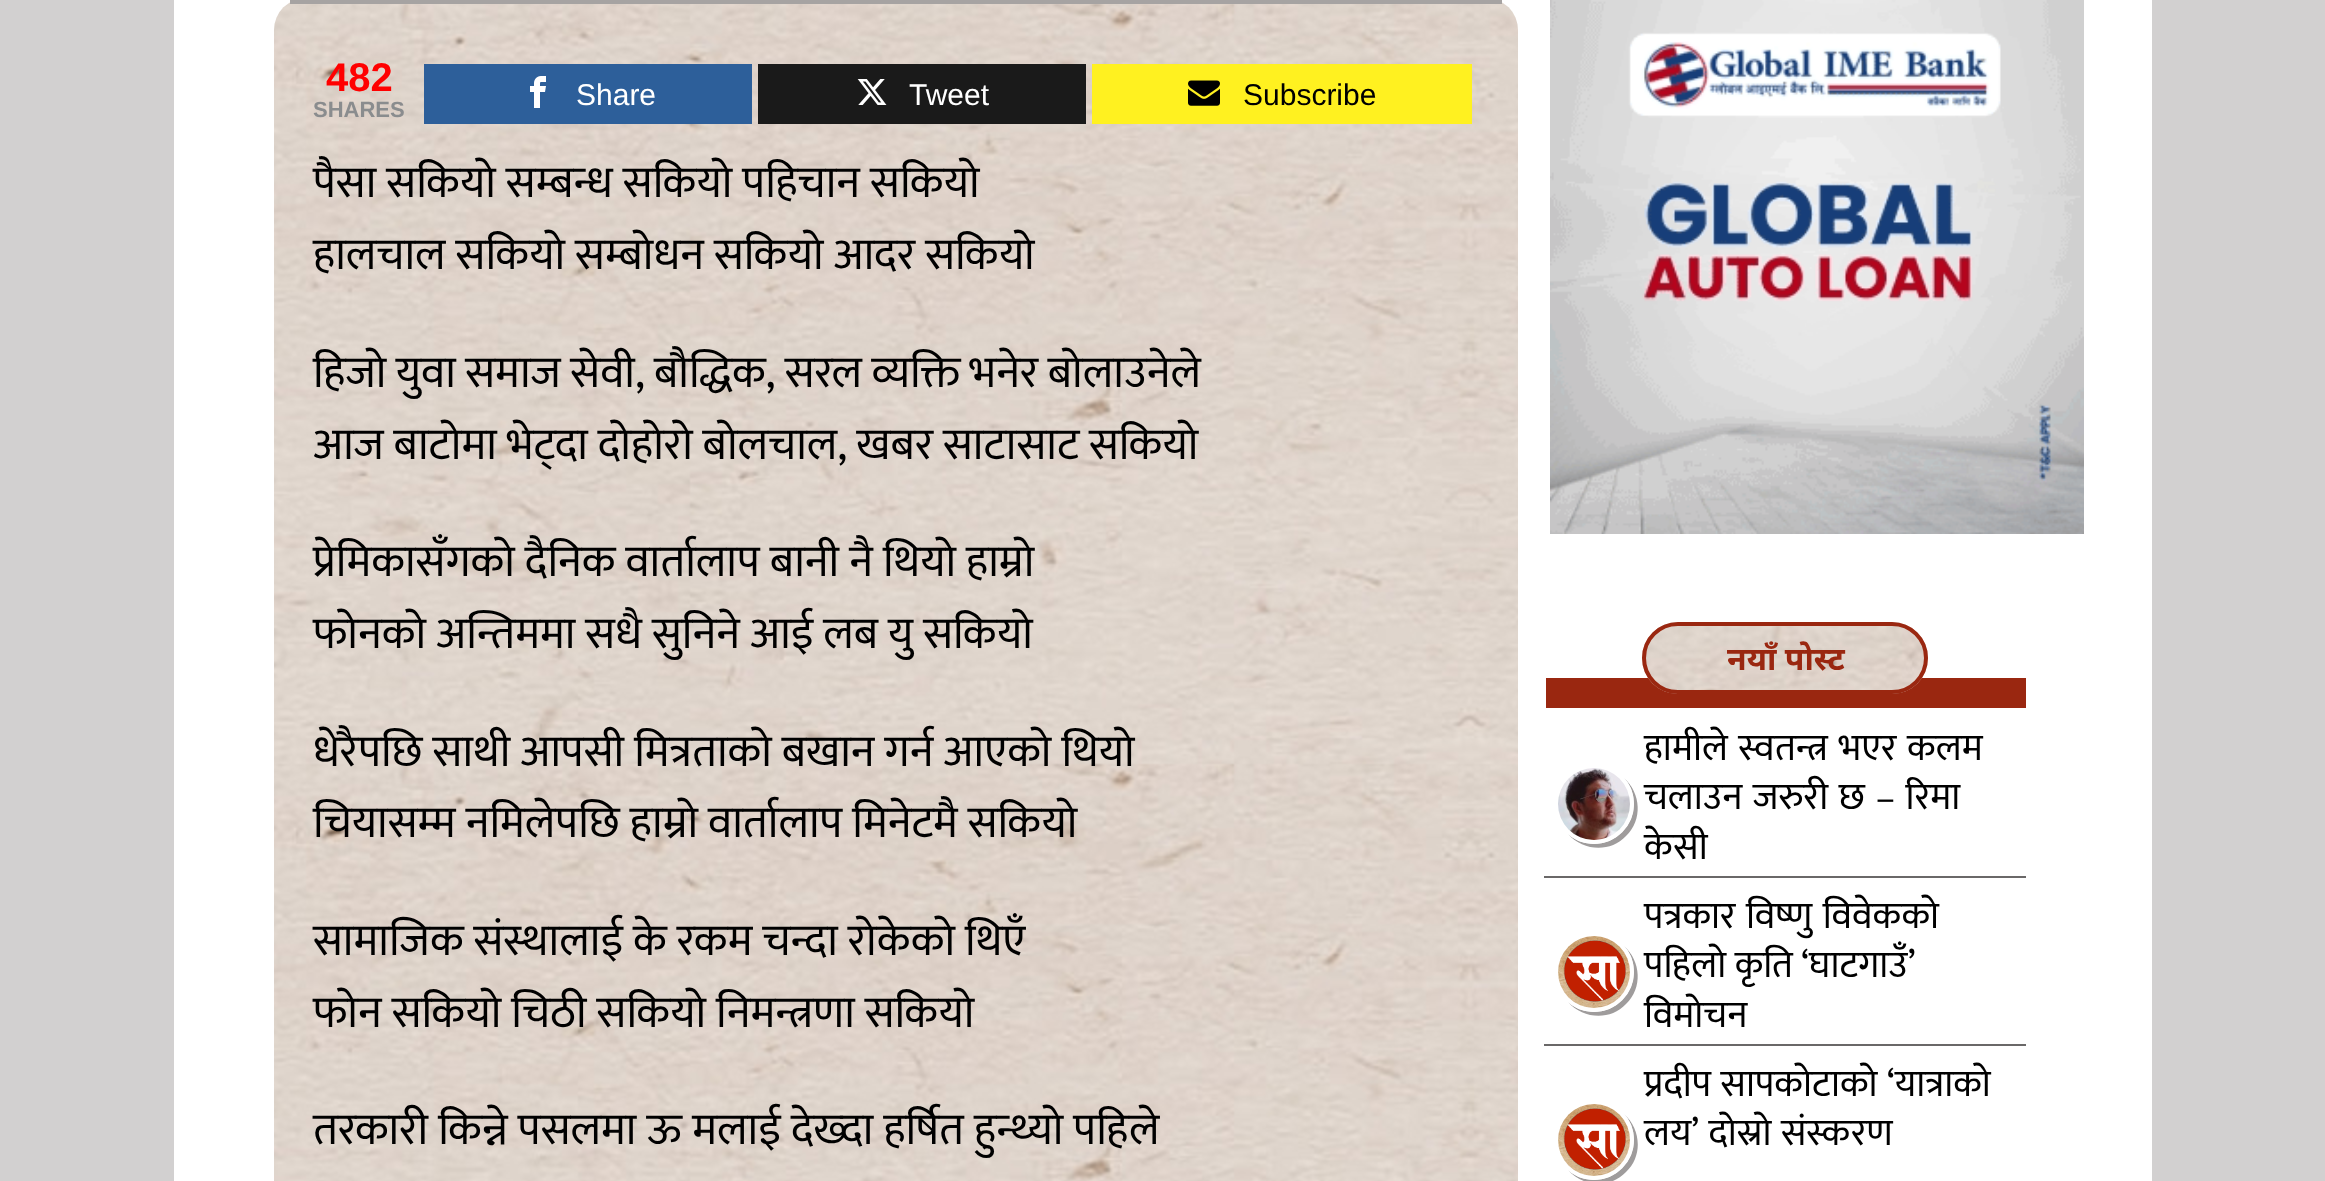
<!DOCTYPE html>
<meta charset="utf-8">
<style>body { margin: 0 } canvas { display: block }</style>
<canvas id="canvas" width="2325" height="1181"></canvas>
<script type="module">
  const canvas = document.getElementById("canvas");
  const ctx = canvas.getContext("2d");
  ctx.miterLimit = 4;
  ctx.fontKerning = "normal";
  async function loadImage(src) {
    const img = new Image();
    img.src = src;
    await img.decode();
    return img;
  }

  ctx.fillStyle = "#d2d0d0";
  ctx.fillRect(0, 0, 2325, 1181);
  ctx.fillStyle = "#ffffff";
  ctx.fillRect(174, 0, 1978, 1181);
  ctx.drawImage(await loadImage("img1.png"), 274, 2, 1244, 1179);
  ctx.fillStyle = "#a6a3a2";
  ctx.fillRect(290, 0, 1212, 4);
  ctx.font = "bold 40px Liberation Sans";
  ctx.fillStyle = "#ff0000";
  ctx.fillText("482", 326, 91);
  ctx.font = "bold 22px Liberation Sans";
  ctx.fillStyle = "#8a8c8e";
  ctx.fillText("SHARES", 313, 117);
  ctx.fillStyle = "#2d5f9a";
  ctx.fillRect(424, 64, 328, 60);
  ctx.drawImage(await loadImage("img2.png"), 530, 76, 16, 32);
  ctx.font = "30px Liberation Sans";
  ctx.fillStyle = "#ffffff";
  ctx.fillText("Share", 576, 105);
  ctx.fillStyle = "#1a1a1a";
  ctx.fillRect(758, 64, 328, 60);
  ctx.drawImage(await loadImage("img3.png"), 857, 79, 30, 26);
  ctx.fillStyle = "#ffffff";
  ctx.fillText("Tweet", 909, 105);
  ctx.fillStyle = "#fff120";
  ctx.fillRect(1092, 64, 380, 60);
  ctx.drawImage(await loadImage("img4.png"), 1188, 80, 32, 26);
  ctx.fillStyle = "#000000";
  ctx.fillText("Subscribe", 1243, 105);
  ctx.font = "44.75px Mukta";
  ctx.fillText("पैसा सकियो सम्बन्ध सकियो पहिचान सकियो", 313, 197);
  ctx.fillText("हालचाल सकियो सम्बोधन सकियो आदर सकियो", 313, 269);
  ctx.wordSpacing = "-0.5px";
  ctx.fillText("हिजो युवा समाज सेवी, बौद्धिक, सरल व्यक्ति भनेर बोलाउनेले", 313, 387);
  ctx.wordSpacing = "-0.25px";
  ctx.fillText("आज बाटोमा भेट्दा दोहोरो बोलचाल, खबर साटासाट सकियो", 313, 459);
  ctx.wordSpacing = "0px";
  ctx.fillText("प्रेमिकासँगको दैनिक वार्तालाप बानी नै थियो हाम्रो", 313, 576);
  ctx.fillText("फोनको अन्तिममा सधै सुनिने आई लब यु सकियो", 313, 648);
  ctx.fillText("धेरैपछि साथी आपसी मित्रताको बखान गर्न आएको थियो", 313, 766);
  ctx.fillText("चियासम्म नमिलेपछि हाम्रो वार्तालाप मिनेटमै सकियो", 313, 837);
  ctx.fillText("सामाजिक संस्थालाई के रकम चन्दा रोकेको थिएँ", 313, 955);
  ctx.fillText("फोन सकियो चिठी सकियो निमन्त्रणा सकियो", 313, 1027);
  ctx.fillText("तरकारी किन्ने पसलमा ऊ मलाई देख्दा हर्षित हुन्थ्यो पहिले", 313, 1144);
  ctx.drawImage(await loadImage("img5.png"), 1550, 0, 534, 534);
  ctx.fillStyle = "#9a2710";
  ctx.fillRect(1546, 678, 480, 30);
  ctx.drawImage(await loadImage("img6.png"), 1642, 622, 286, 72);
  ctx.beginPath();
  ctx.roundRect(1644, 624, 282, 68, 34);
  ctx.strokeStyle = "#9a2710";
  ctx.lineWidth = 4;
  ctx.stroke();
  ctx.font = "bold 32px Noto Sans";
  ctx.fillText("नयाँ पोस्ट", 1727, 670);
  ctx.fillStyle = "#6a6868";
  ctx.fillRect(1544, 876, 482, 2);
  ctx.fillStyle = "#9f9c9c";
  ctx.beginPath();
  ctx.moveTo(1568, 834);
  ctx.bezierCurveTo(1583, 851, 1610, 853, 1626, 836);
  ctx.bezierCurveTo(1643, 820, 1641, 793, 1624, 778);
  ctx.bezierCurveTo(1638, 793, 1637, 818, 1622, 832);
  ctx.bezierCurveTo(1608, 847, 1583, 848, 1568, 834);
  ctx.closePath();
  ctx.fill();
  ctx.beginPath();
  ctx.arc(1594, 804, 38, 0, Math.PI * 2);
  ctx.strokeStyle = "#ffffff";
  ctx.stroke();
  ctx.drawImage(await loadImage("img7.png"), 1558, 768, 72, 72);
  ctx.wordSpacing = "2px";
  ctx.font = "38px Mukta";
  ctx.fillStyle = "#000000";
  ctx.fillText("हामीले स्वतन्त्र भएर कलम", 1644, 760);
  ctx.fillText("चलाउन जरुरी छ – रिमा", 1644, 809);
  ctx.wordSpacing = "0px";
  ctx.fillText("केसी", 1644, 859);
  ctx.fillStyle = "#6a6868";
  ctx.fillRect(1544, 1044, 482, 2);
  ctx.fillStyle = "#9f9c9c";
  ctx.beginPath();
  ctx.moveTo(1568, 1002);
  ctx.bezierCurveTo(1583, 1019, 1610, 1021, 1626, 1004);
  ctx.bezierCurveTo(1643, 988, 1641, 961, 1624, 946);
  ctx.bezierCurveTo(1638, 961, 1637, 986, 1622, 1000);
  ctx.bezierCurveTo(1608, 1015, 1583, 1016, 1568, 1002);
  ctx.closePath();
  ctx.fill();
  ctx.beginPath();
  ctx.arc(1594, 972, 38, 0, Math.PI * 2);
  ctx.stroke();
  ctx.drawImage(await loadImage("img8.png"), 1558, 936, 72, 72);
  ctx.wordSpacing = "2px";
  ctx.fillStyle = "#000000";
  ctx.fillText("पत्रकार विष्णु विवेकको", 1644, 928);
  ctx.wordSpacing = "0px";
  ctx.fillText("पहिलो कृति ‘घाटगाउँ’", 1644, 977);
  ctx.fillText("विमोचन", 1644, 1027);
  ctx.fillStyle = "#9f9c9c";
  ctx.beginPath();
  ctx.moveTo(1568, 1170);
  ctx.bezierCurveTo(1583, 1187, 1610, 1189, 1626, 1172);
  ctx.bezierCurveTo(1643, 1156, 1641, 1129, 1624, 1114);
  ctx.bezierCurveTo(1638, 1129, 1637, 1154, 1622, 1168);
  ctx.bezierCurveTo(1608, 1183, 1583, 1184, 1568, 1170);
  ctx.closePath();
  ctx.fill();
  ctx.beginPath();
  ctx.arc(1594, 1140, 38, 0, Math.PI * 2);
  ctx.stroke();
  ctx.drawImage(await loadImage("img8.png"), 1558, 1104, 72, 72);
  ctx.wordSpacing = "1px";
  ctx.fillStyle = "#000000";
  ctx.fillText("प्रदीप सापकोटाको ‘यात्राको", 1644, 1096);
  ctx.fillText("लय’ दोस्रो संस्करण", 1644, 1145);
</script>
